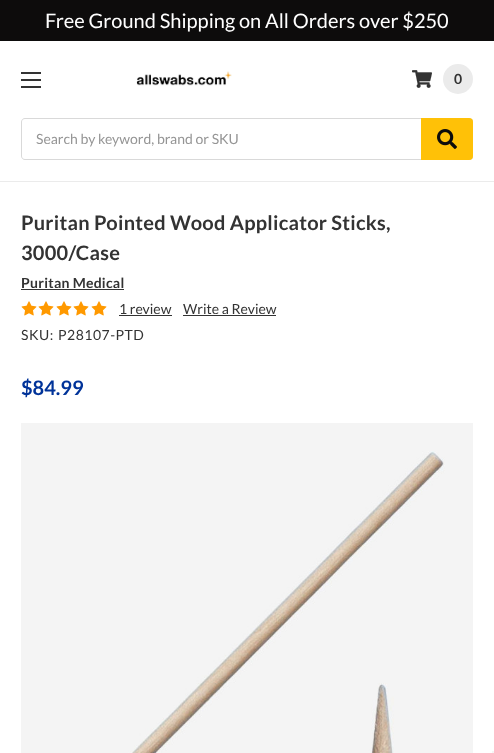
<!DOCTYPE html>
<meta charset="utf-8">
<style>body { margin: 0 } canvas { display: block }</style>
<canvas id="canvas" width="494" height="753"></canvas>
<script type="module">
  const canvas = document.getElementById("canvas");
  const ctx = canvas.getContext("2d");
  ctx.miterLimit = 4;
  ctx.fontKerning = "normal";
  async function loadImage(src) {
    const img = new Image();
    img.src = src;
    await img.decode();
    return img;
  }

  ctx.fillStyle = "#ffffff";
  ctx.fillRect(0, 0, 494, 753);
  ctx.fillStyle = "#0d0c0c";
  ctx.fillRect(0, 0, 494, 41);
  ctx.font = "20px Lato";
  ctx.fillStyle = "#ffffff";
  ctx.fillText("Free Ground Shipping on All Orders over $250", 45, 28);
  ctx.fillStyle = "#ebebeb";
  ctx.fillRect(0, 181, 494, 1);
  ctx.fillStyle = "#333333";
  ctx.fillRect(21, 79, 20, 2);
  ctx.fillRect(21, 72, 20, 2);
  ctx.fillRect(21, 86, 20, 2);
  ctx.drawImage(await loadImage("img1.png"), 136, 71, 96, 15);
  ctx.drawImage(await loadImage("img2.png"), 412, 70, 20, 18);
  ctx.fillStyle = "#ebebeb";
  ctx.beginPath();
  ctx.arc(458, 79, 15, 0, Math.PI * 2);
  ctx.fill();
  ctx.font = "bold 14px Lato";
  ctx.fillStyle = "#333333";
  ctx.fillText("0", 454, 84);
  ctx.fillStyle = "#d9d9d9";
  ctx.beginPath();
  ctx.moveTo(25, 118);
  ctx.bezierCurveTo(23, 118, 21, 120, 21, 122);
  ctx.lineTo(21, 156);
  ctx.bezierCurveTo(21, 158, 23, 160, 25, 160);
  ctx.lineTo(469, 160);
  ctx.bezierCurveTo(470, 160, 471, 160, 472, 159);
  ctx.lineTo(25, 159);
  ctx.bezierCurveTo(23, 159, 22, 158, 22, 156);
  ctx.lineTo(22, 122);
  ctx.bezierCurveTo(22, 120, 23, 119, 25, 119);
  ctx.lineTo(472, 119);
  ctx.lineTo(469, 118);
  ctx.closePath();
  ctx.moveTo(472, 119);
  ctx.lineTo(472, 159);
  ctx.bezierCurveTo(473, 158, 473, 157, 473, 156);
  ctx.lineTo(473, 122);
  ctx.bezierCurveTo(473, 121, 473, 120, 472, 119);
  ctx.closePath();
  ctx.fill("evenodd");
  ctx.font = "14px Lato";
  ctx.fillStyle = "#959595";
  ctx.fillText("Search by keyword, brand or SKU", 36, 144);
  ctx.fillStyle = "#ffc107";
  ctx.beginPath();
  ctx.roundRect(421, 118, 52, 42, [0, 4, 4, 0]);
  ctx.fill();
  ctx.drawImage(await loadImage("img3.png"), 437, 129, 20, 20);
  ctx.letterSpacing = "0.25px";
  ctx.font = "bold 20px Lato";
  ctx.fillStyle = "#333333";
  ctx.fillText("Puritan Pointed Wood Applicator Sticks,", 21, 230);
  ctx.fillText("3000/Case", 21, 260);
  ctx.font = "bold 14px Lato";
  ctx.fillText("Puritan Medical", 21, 288);
  ctx.fillRect(21, 289, 103, 1);
  ctx.drawImage(await loadImage("img4.png"), 21, 301, 16, 15);
  ctx.drawImage(await loadImage("img4.png"), 38, 301, 16, 15);
  ctx.drawImage(await loadImage("img4.png"), 56, 301, 16, 15);
  ctx.drawImage(await loadImage("img4.png"), 73, 301, 16, 15);
  ctx.drawImage(await loadImage("img4.png"), 91, 301, 16, 15);
  ctx.letterSpacing = "0px";
  ctx.font = "14px Lato";
  ctx.fillText("1 review", 119, 314);
  ctx.fillRect(119, 315, 53, 1);
  ctx.fillText("Write a Review", 183, 314);
  ctx.fillRect(183, 315, 93, 1);
  ctx.letterSpacing = "0.5px";
  ctx.fillText("SKU:", 21, 340);
  ctx.fillText("P28107-PTD", 58, 340);
  ctx.letterSpacing = "0px";
  ctx.font = "bold 20px Lato";
  ctx.fillStyle = "#003399";
  ctx.fillText("$84.99", 21, 395);
  ctx.drawImage(await loadImage("img5.png"), 21, 423, 452, 330);
  ctx.fillStyle = "#f5f5f5";
  ctx.fillRect(492, 751, 2, 2);
</script>
